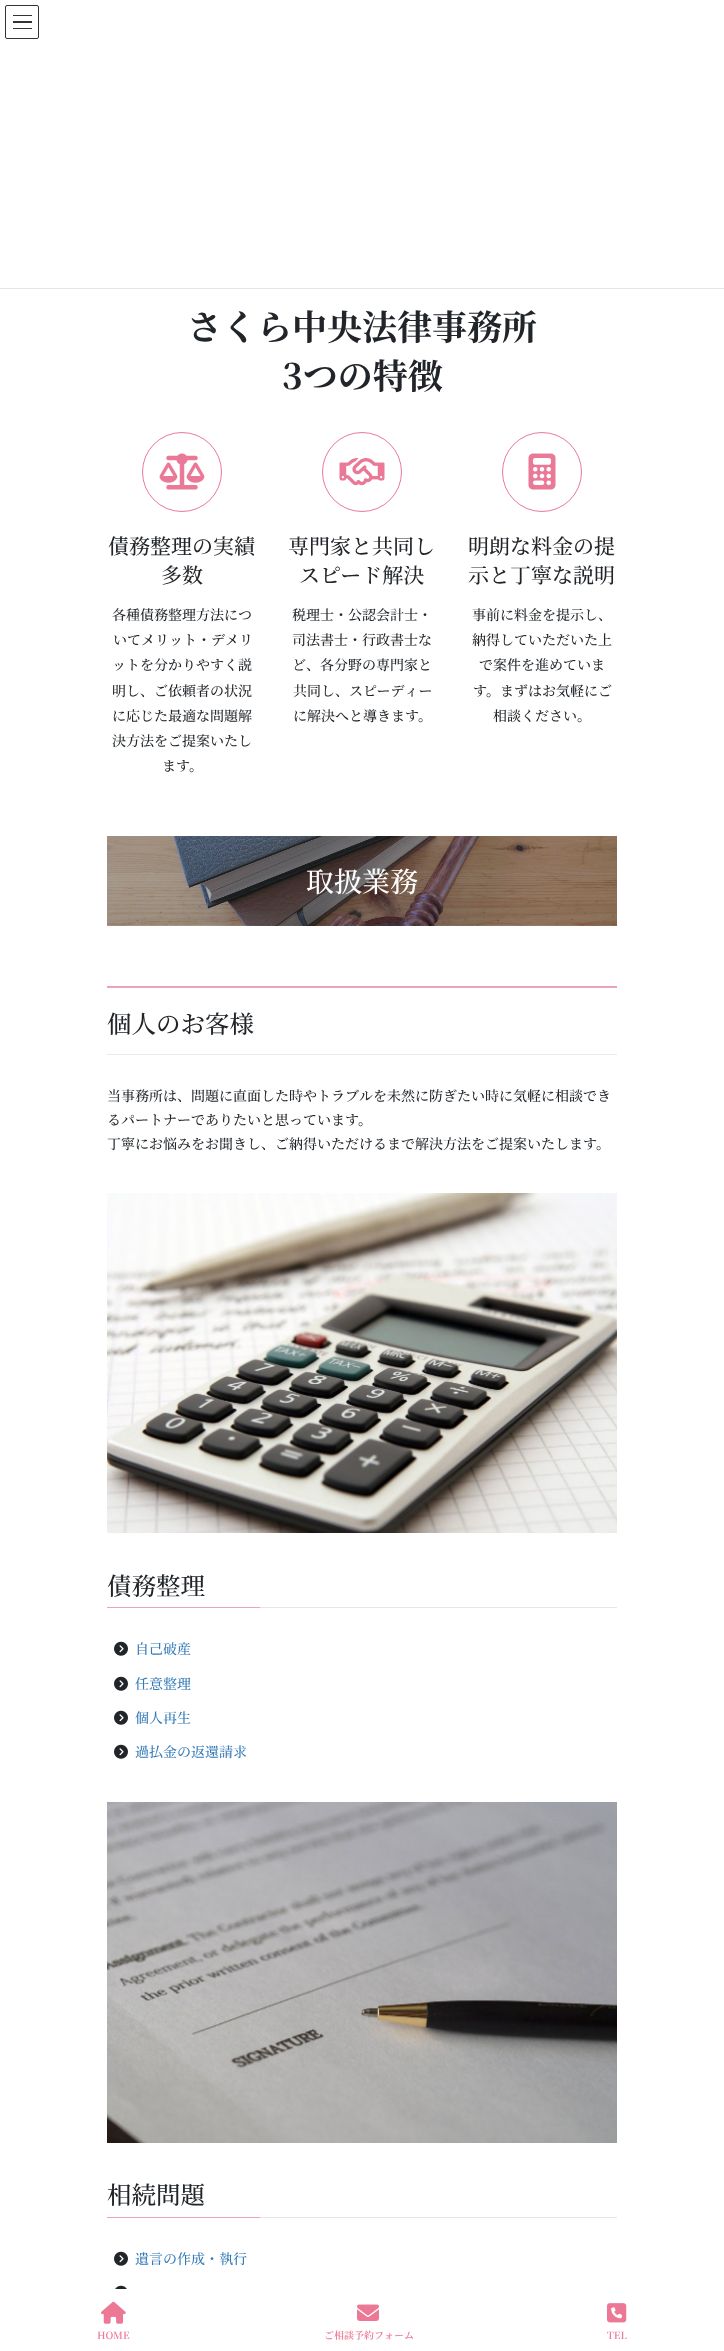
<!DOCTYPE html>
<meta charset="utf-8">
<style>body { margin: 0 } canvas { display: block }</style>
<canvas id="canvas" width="724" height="2351"></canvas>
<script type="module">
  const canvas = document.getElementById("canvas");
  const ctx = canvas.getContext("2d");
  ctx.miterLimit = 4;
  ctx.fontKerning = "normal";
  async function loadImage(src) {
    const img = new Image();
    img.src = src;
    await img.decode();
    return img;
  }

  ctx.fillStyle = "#ffffff";
  ctx.fillRect(0, 0, 724, 2351);
  ctx.fillStyle = "#333333";
  ctx.fillRect(13, 15, 19, 1);
  ctx.fillRect(13, 21, 19, 2);
  ctx.fillRect(13, 28, 19, 1);
  ctx.beginPath();
  ctx.roundRect(5.5, 5.5, 33, 33, 1.5);
  ctx.strokeStyle = "#333333";
  ctx.stroke();
  ctx.fillStyle = "#e5e5e5";
  ctx.fillRect(0, 288, 724, 1);
  ctx.font = "bold 35px Noto Serif JP";
  ctx.fillStyle = "#212529";
  ctx.fillText("さくら中央法律事務所", 187, 340);
  ctx.fillText("3つの特徴", 282, 389);
  ctx.beginPath();
  ctx.arc(182, 472, 39.5, 0, Math.PI * 2);
  ctx.strokeStyle = "#ea7998";
  ctx.stroke();
  ctx.drawImage(await loadImage("img1.png"), 159, 453, 46, 37);
  ctx.font = "500 21px Noto Serif JP";
  ctx.fillText("債務整理の実績", 108, 554);
  ctx.fillText("多数", 161, 583);
  ctx.font = "500 14px Noto Serif JP";
  ctx.fillText("各種債務整理方法につ", 112, 620);
  ctx.fillText("いてメリット・デメリ", 113, 645);
  ctx.fillText("ットを分かりやすく説", 112, 670);
  ctx.fillText("明し、ご依頼者の状況", 112, 696);
  ctx.fillText("に応じた最適な問題解", 112, 721);
  ctx.fillText("決方法をご提案いたし", 112, 746);
  ctx.fillText("ます。", 162, 771);
  ctx.beginPath();
  ctx.arc(362, 472, 39.5, 0, Math.PI * 2);
  ctx.stroke();
  ctx.drawImage(await loadImage("img2.png"), 339, 458, 46, 28);
  ctx.font = "500 21px Noto Serif JP";
  ctx.fillText("専門家と共同し", 288, 554);
  ctx.fillText("スピード解決", 299, 583);
  ctx.font = "500 14px Noto Serif JP";
  ctx.fillText("税理士・公認会計士・", 292, 620);
  ctx.fillText("司法書士・行政書士な", 292, 645);
  ctx.fillText("ど、各分野の専門家と", 292, 670);
  ctx.fillText("共同し、スピーディー", 293, 696);
  ctx.fillText("に解決へと導きます。", 293, 721);
  ctx.beginPath();
  ctx.arc(542, 472, 39.5, 0, Math.PI * 2);
  ctx.stroke();
  ctx.drawImage(await loadImage("img3.png"), 528, 453, 28, 37);
  ctx.font = "500 21px Noto Serif JP";
  ctx.fillText("明朗な料金の提", 468, 554);
  ctx.fillText("示と丁寧な説明", 468, 583);
  ctx.font = "500 14px Noto Serif JP";
  ctx.fillText("事前に料金を提示し、", 472, 620);
  ctx.fillText("納得していただいた上", 472, 645);
  ctx.fillText("で案件を進めていま", 479, 670);
  ctx.fillText("す。まずはお気軽にご", 473, 696);
  ctx.fillText("相談ください。", 493, 721);
  ctx.drawImage(await loadImage("img4.png"), 107, 836, 510, 90);
  ctx.font = "500 28px Noto Serif JP";
  ctx.fillStyle = "#ffffff";
  ctx.fillText("取扱業務", 306, 892);
  ctx.fillStyle = "#eaa4b6";
  ctx.fillRect(107, 986, 510, 2);
  ctx.fillStyle = "#e9e9e9";
  ctx.fillRect(107, 1054, 510, 1);
  ctx.font = "500 24.5px Noto Serif JP";
  ctx.fillStyle = "#212529";
  ctx.fillText("個人のお客様", 107, 1033);
  ctx.font = "500 14px Noto Serif JP";
  ctx.fillText("当事務所は、問題に直面した時やトラブルを未然に防ぎたい時に気軽に相談でき", 107, 1101);
  ctx.fillText("るパートナーでありたいと思っています。", 107, 1125);
  ctx.fillText("丁寧にお悩みをお聞きし、ご納得いただけるまで解決方法をご提案いたします。", 107, 1149);
  ctx.drawImage(await loadImage("img5.png"), 107, 1193, 510, 340);
  ctx.fillStyle = "#e6e6e6";
  ctx.fillRect(260, 1607, 357, 1);
  ctx.font = "500 24.5px Noto Serif JP";
  ctx.fillStyle = "#212529";
  ctx.fillText("債務整理", 107, 1595);
  ctx.fillStyle = "#eaa4b6";
  ctx.fillRect(107, 1607, 153, 1);
  ctx.drawImage(await loadImage("img6.png"), 114, 1641, 14, 15);
  ctx.font = "500 14px Noto Serif JP";
  ctx.fillStyle = "#337ab7";
  ctx.fillText("自己破産", 135, 1654);
  ctx.drawImage(await loadImage("img6.png"), 114, 1676, 14, 15);
  ctx.fillText("任意整理", 135, 1689);
  ctx.drawImage(await loadImage("img6.png"), 114, 1710, 14, 15);
  ctx.fillText("個人再生", 135, 1723);
  ctx.drawImage(await loadImage("img6.png"), 114, 1744, 14, 15);
  ctx.fillText("過払金の返還請求", 135, 1757);
  ctx.drawImage(await loadImage("img7.png"), 107, 1802, 510, 341);
  ctx.fillStyle = "#e6e6e6";
  ctx.fillRect(260, 2217, 357, 1);
  ctx.font = "500 24.5px Noto Serif JP";
  ctx.fillStyle = "#212529";
  ctx.fillText("相続問題", 107, 2204);
  ctx.fillStyle = "#eaa4b6";
  ctx.fillRect(107, 2217, 153, 1);
  ctx.drawImage(await loadImage("img6.png"), 114, 2251, 14, 15);
  ctx.font = "500 14px Noto Serif JP";
  ctx.fillStyle = "#337ab7";
  ctx.fillText("遺言の作成・執行", 135, 2264);
  ctx.drawImage(await loadImage("img8.png"), 115, 2285, 12, 4);
  ctx.drawImage(await loadImage("img9.png"), 101, 2301, 25, 23);
  ctx.font = "600 10px Noto Serif JP";
  ctx.fillStyle = "#ec7897";
  ctx.fillText("HOME", 97, 2339);
  ctx.drawImage(await loadImage("img10.png"), 357, 2304, 22, 17);
  ctx.fillText("ご相談予約フォーム", 324, 2339);
  ctx.drawImage(await loadImage("img11.png"), 607, 2303, 20, 20);
  ctx.fillText("TEL", 607, 2339);
</script>
